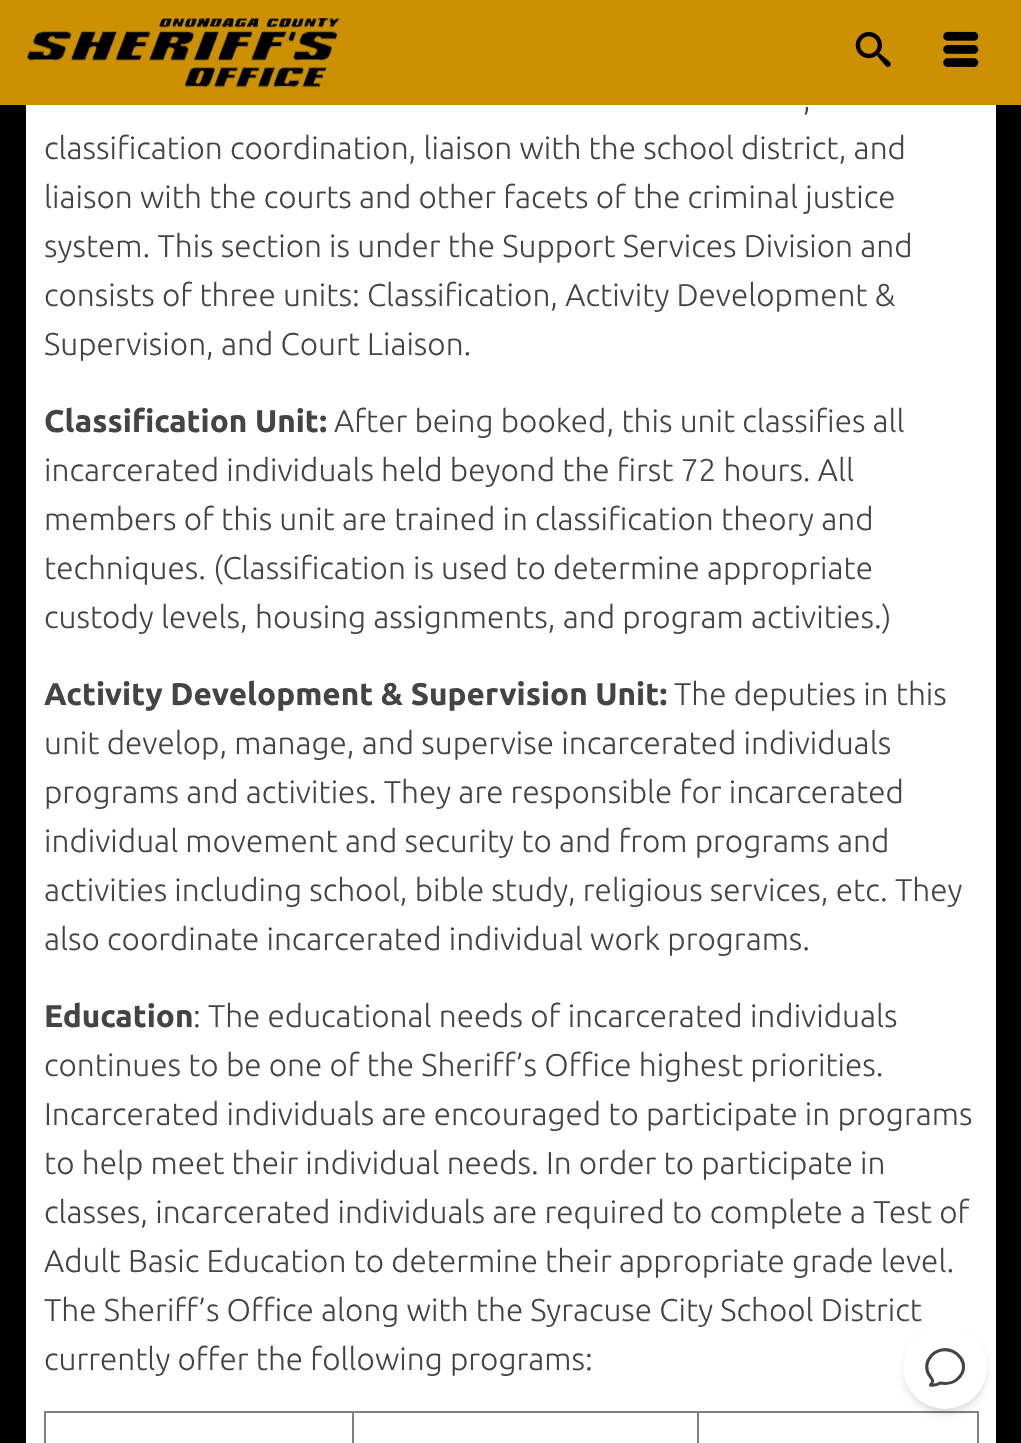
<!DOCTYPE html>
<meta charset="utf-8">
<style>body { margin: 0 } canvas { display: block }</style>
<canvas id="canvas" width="1021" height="1443"></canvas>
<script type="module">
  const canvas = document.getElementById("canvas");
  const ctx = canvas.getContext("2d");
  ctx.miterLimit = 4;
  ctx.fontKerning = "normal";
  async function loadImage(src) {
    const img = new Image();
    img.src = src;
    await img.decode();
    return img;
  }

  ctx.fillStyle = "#000000";
  ctx.fillRect(0, 0, 1021, 1443);
  ctx.fillStyle = "#cc9000";
  ctx.fillRect(0, 0, 1021, 105);
  ctx.drawImage(await loadImage("img1.png"), 27, 18, 313, 70);
  ctx.drawImage(await loadImage("img2.png"), 855, 31, 36, 36);
  ctx.drawImage(await loadImage("img3.png"), 943, 31, 36, 36);
  ctx.fillStyle = "#ffffff";
  ctx.fillRect(26, 105, 970, 1338);
  ctx.font = "300 31.5px Ubuntu";
  ctx.fillStyle = "#444444";
  ctx.fillText(",", 803, 110);
  ctx.fillText("classification coordination, liaison with the school district, and", 44, 159);
  ctx.fillText("liaison with the courts and other facets of the criminal justice", 44, 208);
  ctx.fillText("system. This section is under the Support Services Division and", 44, 257);
  ctx.fillText("consists of three units: Classification, Activity Development &", 44, 306);
  ctx.fillText("Supervision, and Court Liaison.", 44, 355);
  ctx.font = "bold 31.5px Ubuntu";
  ctx.fillText("Classification Unit:", 44, 432);
  ctx.font = "300 31.5px Ubuntu";
  ctx.fillText("After being booked, this unit classifies all", 334, 432);
  ctx.fillText("incarcerated individuals held beyond the first 72 hours. All", 44, 481);
  ctx.fillText("members of this unit are trained in classification theory and", 44, 530);
  ctx.fillText("techniques. (Classification is used to determine appropriate", 44, 579);
  ctx.fillText("custody levels, housing assignments, and program activities.)", 44, 628);
  ctx.font = "bold 31.5px Ubuntu";
  ctx.fillText("Activity Development & Supervision Unit:", 44, 705);
  ctx.font = "300 31.5px Ubuntu";
  ctx.fillText("The deputies in this", 674, 705);
  ctx.fillText("unit develop, manage, and supervise incarcerated individuals", 44, 754);
  ctx.fillText("programs and activities. They are responsible for incarcerated", 44, 803);
  ctx.fillText("individual movement and security to and from programs and", 44, 852);
  ctx.fillText("activities including school, bible study, religious services, etc. They", 44, 901);
  ctx.fillText("also coordinate incarcerated individual work programs.", 44, 950);
  ctx.font = "bold 31.5px Ubuntu";
  ctx.fillText("Education", 44, 1027);
  ctx.font = "300 31.5px Ubuntu";
  ctx.fillText(": The educational needs of incarcerated individuals", 193, 1027);
  ctx.fillText("continues to be one of the Sheriff’s Office highest priorities.", 44, 1076);
  ctx.fillText("Incarcerated individuals are encouraged to participate in programs", 44, 1125);
  ctx.fillText("to help meet their individual needs. In order to participate in", 44, 1174);
  ctx.fillText("classes, incarcerated individuals are required to complete a Test of", 44, 1223);
  ctx.fillText("Adult Basic Education to determine their appropriate grade level.", 44, 1272);
  ctx.fillText("The Sheriff’s Office along with the Syracuse City School District", 44, 1321);
  ctx.fillText("currently offer the following programs:", 44, 1370);
  ctx.fillStyle = "#808080";
  ctx.fillRect(44, 1411, 934, 2);
  ctx.fillRect(977, 1411, 2, 32);
  ctx.fillRect(44, 1411, 2, 32);
  ctx.fillRect(352, 1411, 2, 32);
  ctx.fillRect(697, 1411, 2, 32);
  ctx.fillStyle = "rgba(0, 0, 0, 0.1)";
  ctx.filter = "blur(3.5px)";
  ctx.beginPath();
  ctx.roundRect(907, 1332, 77, 77, 38.5);
  ctx.fill();
  ctx.filter = "none";
  ctx.filter = "blur(5px)";
  ctx.beginPath();
  ctx.roundRect(905, 1334, 80, 80, 40);
  ctx.fill();
  ctx.filter = "none";
  ctx.fillStyle = "#ffffff";
  ctx.beginPath();
  ctx.arc(945, 1367, 42, 0, Math.PI * 2);
  ctx.fill();
  ctx.beginPath();
  ctx.moveTo(945, 1383.5);
  ctx.bezierCurveTo(950, 1383.5, 954.5, 1382, 958, 1378.5);
  ctx.bezierCurveTo(971.5, 1366, 958, 1347, 941.5, 1350);
  ctx.bezierCurveTo(937, 1351, 932.5, 1353.5, 930, 1357.5);
  ctx.bezierCurveTo(926, 1362.5, 925.5, 1370, 929.5, 1375.5);
  ctx.bezierCurveTo(932, 1379.5, 934.5, 1380.5, 930.5, 1385);
  ctx.bezierCurveTo(934, 1385.5, 937, 1385, 940, 1383);
  ctx.closePath();
  ctx.strokeStyle = "#444444";
  ctx.lineWidth = 3.1;
  ctx.lineCap = "round";
  ctx.lineJoin = "round";
  ctx.stroke();
</script>
